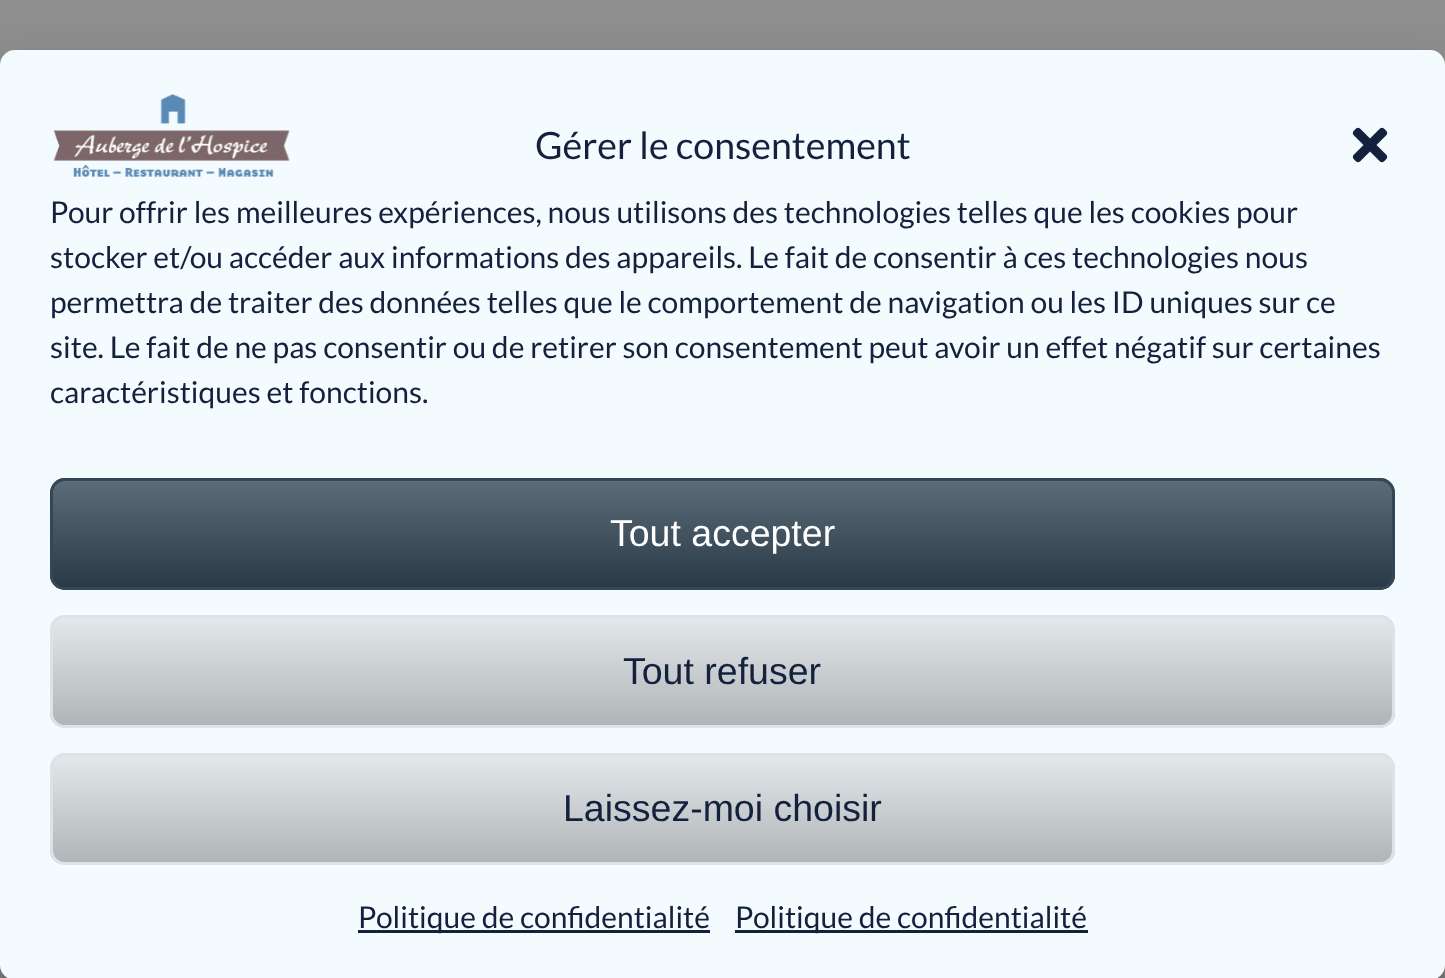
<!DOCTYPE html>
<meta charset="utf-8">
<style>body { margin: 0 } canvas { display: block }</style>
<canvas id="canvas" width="1445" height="978"></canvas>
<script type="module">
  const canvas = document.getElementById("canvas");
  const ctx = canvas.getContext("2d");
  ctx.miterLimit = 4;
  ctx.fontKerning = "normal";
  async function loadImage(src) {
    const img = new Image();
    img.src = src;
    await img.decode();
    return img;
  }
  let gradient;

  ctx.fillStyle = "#8e8e8e";
  ctx.fillRect(0, 0, 1445, 978);
  ctx.fillStyle = "rgba(0, 0, 0, 0.23)";
  ctx.filter = "blur(7.5px)";
  ctx.beginPath();
  ctx.roundRect(0, 65, 1445, 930, 15);
  ctx.fill();
  ctx.filter = "none";
  ctx.fillStyle = "rgba(0, 0, 0, 0.19)";
  ctx.filter = "blur(25px)";
  ctx.beginPath();
  ctx.roundRect(0, 75, 1445, 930, 15);
  ctx.fill();
  ctx.filter = "none";
  ctx.fillStyle = "#f4fbff";
  ctx.beginPath();
  ctx.roundRect(0, 50, 1445, 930, 15);
  ctx.fill();
  ctx.drawImage(await loadImage("img1.png"), 53, 93, 237, 84);
  ctx.font = "37.5px Lato";
  ctx.fillStyle = "#14213d";
  ctx.fillText("Gérer le consentement", 535, 159);
  ctx.drawImage(await loadImage("img2.png"), 1352, 127, 36, 36);
  ctx.font = "30px Lato";
  ctx.fillText("Pour offrir les meilleures expériences, nous utilisons des technologies telles que les cookies pour", 50, 223);
  ctx.fillText("stocker et/ou accéder aux informations des appareils. Le fait de consentir à ces technologies nous", 50, 268);
  ctx.fillText("permettra de traiter des données telles que le comportement de navigation ou les ID uniques sur ce", 50, 313);
  ctx.fillText("site. Le fait de ne pas consentir ou de retirer son consentement peut avoir un effet négatif sur certaines", 50, 358);
  ctx.fillText("caractéristiques et fonctions.", 50, 403);
  ctx.fillStyle = "#334757";
  ctx.beginPath();
  ctx.roundRect(50, 478, 1345, 112, 15);
  ctx.fill();
  ctx.save();
  ctx.beginPath();
  ctx.roundRect(50, 478, 1345, 112, 15);
  ctx.clip();
  gradient = ctx.createLinearGradient(723, 480, 723, 588);
  gradient.addColorStop(0, "rgba(255, 255, 255, 0.2)");
  gradient.addColorStop(1, "rgba(0, 0, 0, 0.2)");
  ctx.fillStyle = gradient;
  ctx.fillRect(50, 480, 1345, 108);
  ctx.restore();
  ctx.beginPath();
  ctx.roundRect(51.5, 479.5, 1342, 109, 13.5);
  ctx.strokeStyle = "#334757";
  ctx.lineWidth = 3;
  ctx.stroke();
  ctx.font = "37.5px Liberation Sans";
  ctx.fillStyle = "#ffffff";
  ctx.fillText("Tout accepter", 610, 546);
  ctx.fillStyle = "#dce2e6";
  ctx.beginPath();
  ctx.roundRect(50, 615, 1345, 113, 15);
  ctx.fill();
  ctx.save();
  ctx.beginPath();
  ctx.roundRect(50, 615, 1345, 113, 15);
  ctx.clip();
  gradient = ctx.createLinearGradient(723, 617, 723, 725);
  gradient.addColorStop(0, "rgba(255, 255, 255, 0.2)");
  gradient.addColorStop(1, "rgba(0, 0, 0, 0.2)");
  ctx.fillStyle = gradient;
  ctx.fillRect(50, 618, 1345, 107);
  ctx.restore();
  ctx.beginPath();
  ctx.roundRect(51.5, 616.5, 1342, 110, 13.5);
  ctx.strokeStyle = "#dce2e6";
  ctx.stroke();
  ctx.fillStyle = "#14213d";
  ctx.fillText("Tout refuser", 623, 684);
  ctx.fillStyle = "#dce2e6";
  ctx.beginPath();
  ctx.roundRect(50, 753, 1345, 112, 15);
  ctx.fill();
  ctx.save();
  ctx.beginPath();
  ctx.roundRect(50, 753, 1345, 112, 15);
  ctx.clip();
  gradient = ctx.createLinearGradient(723, 755, 723, 863);
  gradient.addColorStop(0, "rgba(255, 255, 255, 0.2)");
  gradient.addColorStop(1, "rgba(0, 0, 0, 0.2)");
  ctx.fillStyle = gradient;
  ctx.fillRect(50, 755, 1345, 108);
  ctx.restore();
  ctx.beginPath();
  ctx.roundRect(51.5, 754.5, 1342, 109, 13.5);
  ctx.stroke();
  ctx.fillStyle = "#14213d";
  ctx.fillText("Laissez-moi choisir", 563, 821);
  ctx.fillRect(358, 930, 352, 3);
  ctx.font = "30px Lato";
  ctx.fillText("Politique de confidentialité", 358, 928);
  ctx.fillRect(735, 930, 353, 3);
  ctx.fillText("Politique de confidentialité", 735, 928);
</script>
